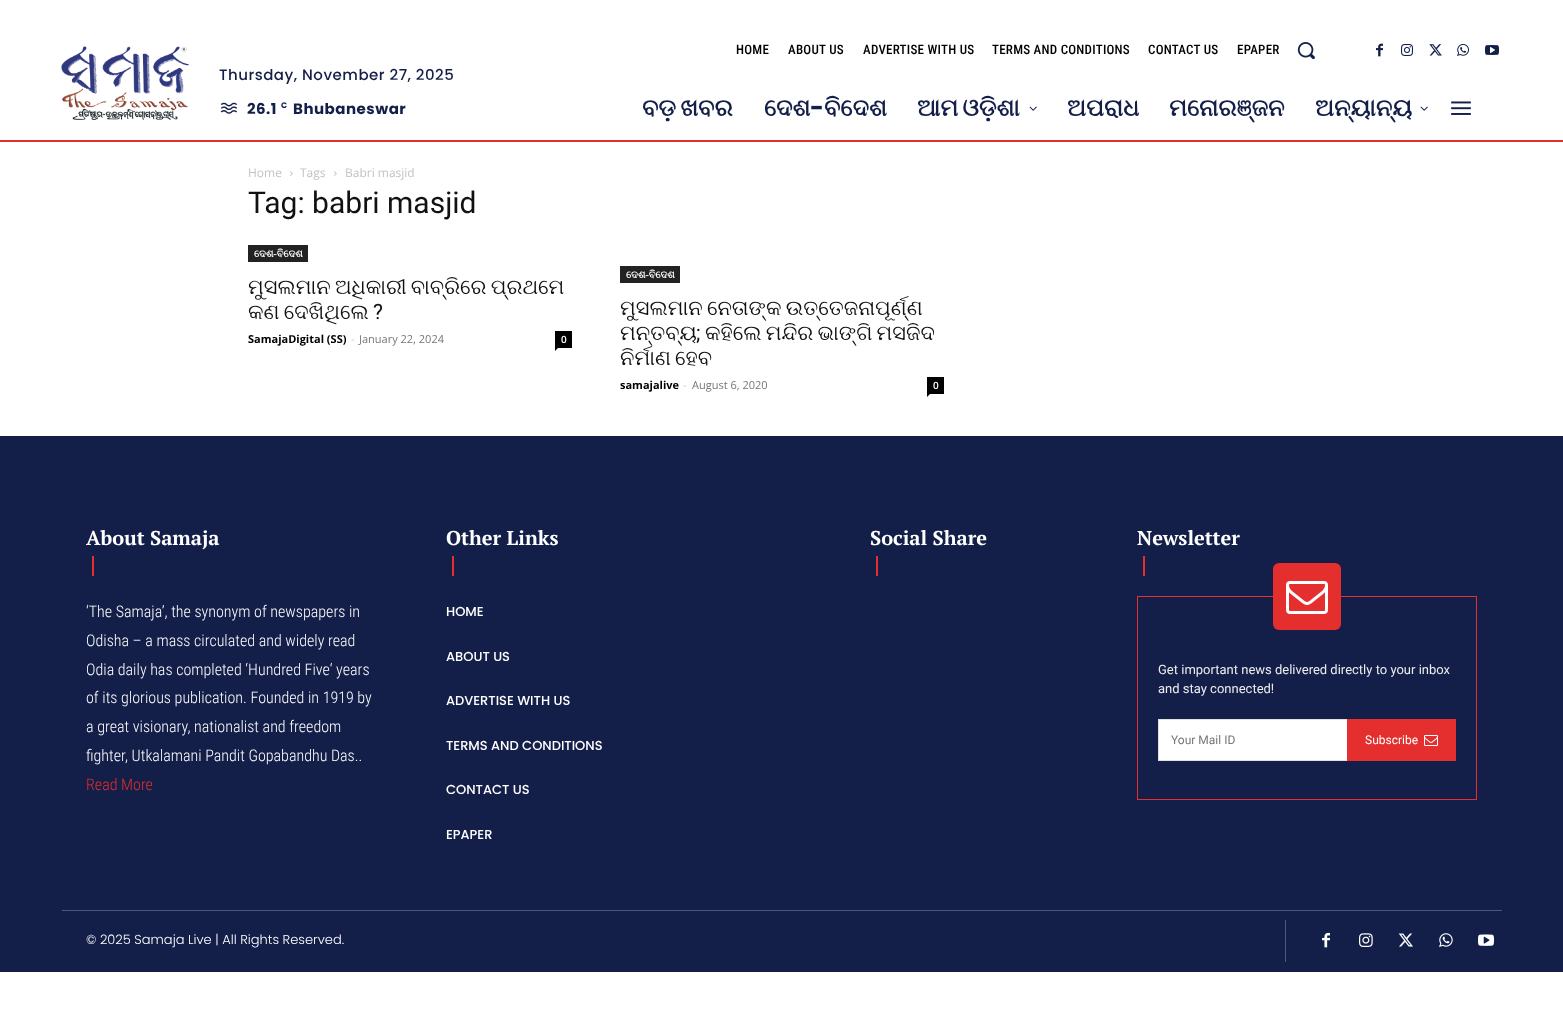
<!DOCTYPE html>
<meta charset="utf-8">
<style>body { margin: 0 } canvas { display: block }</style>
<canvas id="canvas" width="1563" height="1020"></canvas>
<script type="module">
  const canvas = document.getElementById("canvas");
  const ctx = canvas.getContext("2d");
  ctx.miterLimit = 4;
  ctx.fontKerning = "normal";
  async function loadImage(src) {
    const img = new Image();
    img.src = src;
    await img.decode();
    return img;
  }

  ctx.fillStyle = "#ffffff";
  ctx.fillRect(0, 0, 1563, 1020);
  ctx.fillStyle = "#e52e2e";
  ctx.fillRect(0, 140, 1563, 2);
  ctx.drawImage(await loadImage("img1.png"), 61, 46, 128, 74);
  ctx.letterSpacing = "0.5px";
  ctx.font = "500 15px Poppins";
  ctx.fillStyle = "#131f49";
  ctx.fillText("Thursday, November 27, 2025", 219, 80);
  ctx.drawImage(await loadImage("img2.png"), 220, 102, 18, 12);
  ctx.font = "bold 15px Poppins";
  ctx.fillText("26.1", 247, 114);
  ctx.font = "bold 8px Poppins";
  ctx.fillText("C", 281, 108);
  ctx.font = "bold 15px Poppins";
  ctx.fillText("Bhubaneswar", 293, 114);
  ctx.letterSpacing = "0.25px";
  ctx.font = "500 13px Roboto Condensed";
  ctx.fillStyle = "#000000";
  ctx.fillText("HOME", 736, 54);
  ctx.fillText("ABOUT US", 788, 54);
  ctx.fillText("ADVERTISE WITH US", 863, 54);
  ctx.fillText("TERMS AND CONDITIONS", 992, 54);
  ctx.fillText("CONTACT US", 1148, 54);
  ctx.fillText("EPAPER", 1237, 54);
  ctx.drawImage(await loadImage("img3.png"), 1297, 42, 18, 18);
  ctx.drawImage(await loadImage("img4.png"), 1376, 43, 7, 14);
  ctx.drawImage(await loadImage("img5.png"), 1401, 44, 12, 12);
  ctx.drawImage(await loadImage("img6.png"), 1429, 44, 13, 12);
  ctx.drawImage(await loadImage("img7.png"), 1457, 44, 12, 12);
  ctx.drawImage(await loadImage("img8.png"), 1485, 45, 14, 10);
  ctx.letterSpacing = "0px";
  ctx.wordSpacing = "-2px";
  ctx.font = "bold 24px FreeSerif";
  ctx.fillStyle = "#131f49";
  ctx.fillText("ବଡ଼ ଖବର", 642, 116);
  ctx.wordSpacing = "0px";
  ctx.fillText("ଦେଶ", 764, 116);
  ctx.font = "bold 24px Poppins";
  ctx.fillText("-", 810, 116);
  ctx.font = "bold 24px FreeSerif";
  ctx.fillText("ବିଦେଶ", 824, 116);
  ctx.wordSpacing = "-2px";
  ctx.fillText("ଆମ ଓଡ଼ିଶା", 917, 116);
  ctx.drawImage(await loadImage("img9.png"), 1029, 106, 8, 5);
  ctx.wordSpacing = "0px";
  ctx.fillText("ଅପରାଧ", 1067, 116);
  ctx.fillText("ମନୋରଞ୍ଜନ", 1169, 116);
  ctx.fillText("ଅନ୍ୟାନ୍ୟ", 1315, 116);
  ctx.drawImage(await loadImage("img9.png"), 1420, 106, 8, 5);
  ctx.drawImage(await loadImage("img10.png"), 1451, 101, 20, 14);
  ctx.font = "12px Open Sans";
  ctx.fillStyle = "#c3c3c3";
  ctx.fillText("Home", 248, 177);
  ctx.drawImage(await loadImage("img11.png"), 290, 171, 3, 5);
  ctx.fillText("Tags", 300, 177);
  ctx.drawImage(await loadImage("img11.png"), 334, 171, 3, 5);
  ctx.fillText("Babri masjid", 345, 177);
  ctx.font = "30px Roboto";
  ctx.fillStyle = "#111111";
  ctx.fillText("Tag: babri masjid", 248, 213);
  ctx.fillStyle = "#222222";
  ctx.fillRect(248, 245, 60, 17);
  ctx.font = "bold 10px FreeSerif";
  ctx.fillStyle = "#ffffff";
  ctx.fillText("ଦେଶ-ବିଦେଶ", 254, 257);
  ctx.wordSpacing = "-1px";
  ctx.font = "21px FreeSerif";
  ctx.fillStyle = "#111111";
  ctx.fillText("ମୁସଲମାନ ଅଧିକାରୀ ବାବ୍ରିରେ ପ୍ରଥମେ", 248, 294);
  ctx.fillText("କଣ ଦେଖିଥିଲେ", 248, 319);
  ctx.wordSpacing = "0px";
  ctx.font = "21px Roboto";
  ctx.fillText("?", 373, 319);
  ctx.font = "bold 11px Open Sans";
  ctx.fillStyle = "#000000";
  ctx.fillText("SamajaDigital (SS)", 248, 343);
  ctx.font = "11px Open Sans";
  ctx.fillStyle = "#cccccc";
  ctx.fillText("-", 351, 343);
  ctx.fillStyle = "#767676";
  ctx.fillText("January 22, 2024", 359, 343);
  ctx.fillStyle = "#000000";
  ctx.fillRect(555, 331, 17, 17);
  ctx.font = "600 10px Open Sans";
  ctx.fillStyle = "#ffffff";
  ctx.fillText("0", 561, 343);
  ctx.fillStyle = "#000000";
  ctx.beginPath();
  ctx.moveTo(555, 348);
  ctx.lineTo(558, 348);
  ctx.lineTo(555, 351);
  ctx.closePath();
  ctx.fill();
  ctx.fillStyle = "#222222";
  ctx.fillRect(620, 266, 60, 17);
  ctx.font = "bold 10px FreeSerif";
  ctx.fillStyle = "#ffffff";
  ctx.fillText("ଦେଶ-ବିଦେଶ", 626, 278);
  ctx.wordSpacing = "-1px";
  ctx.font = "21px FreeSerif";
  ctx.fillStyle = "#111111";
  ctx.fillText("ମୁସଲମାନ ନେତାଙ୍କ ଉତ୍ତେଜନାପୂର୍ଣ୍ଣ", 620, 315);
  ctx.wordSpacing = "0px";
  ctx.fillText("ମନ୍ତବ୍ୟ", 620, 340);
  ctx.font = "21px Roboto";
  ctx.fillText(";", 696, 340);
  ctx.wordSpacing = "-1px";
  ctx.font = "21px FreeSerif";
  ctx.fillText("କହିଲେ ମନ୍ଦିର ଭାଙ୍ଗି ମସଜିଦ", 705, 340);
  ctx.fillText("ନିର୍ମାଣ ହେବ", 620, 365);
  ctx.wordSpacing = "0px";
  ctx.font = "bold 11px Open Sans";
  ctx.fillStyle = "#000000";
  ctx.fillText("samajalive", 620, 389);
  ctx.font = "11px Open Sans";
  ctx.fillStyle = "#cccccc";
  ctx.fillText("-", 683, 389);
  ctx.fillStyle = "#767676";
  ctx.fillText("August 6, 2020", 692, 389);
  ctx.fillStyle = "#000000";
  ctx.fillRect(927, 377, 17, 17);
  ctx.font = "600 10px Open Sans";
  ctx.fillStyle = "#ffffff";
  ctx.fillText("0", 933, 389);
  ctx.fillStyle = "#000000";
  ctx.beginPath();
  ctx.moveTo(927, 394);
  ctx.lineTo(930, 394);
  ctx.lineTo(927, 397);
  ctx.closePath();
  ctx.fill();
  ctx.fillStyle = "#131f49";
  ctx.fillRect(0, 436, 1563, 536);
  ctx.font = "bold 20px PT Serif";
  ctx.fillStyle = "#ffffff";
  ctx.fillText("About Samaja", 86, 545);
  ctx.fillStyle = "#e52e2e";
  ctx.fillRect(92, 556, 2, 20);
  ctx.font = "300 16px Roboto Condensed";
  ctx.fillStyle = "#ffffff";
  ctx.fillText("‘The Samaja’, the synonym of newspapers in", 86, 617);
  ctx.fillText("Odisha – a mass circulated and widely read", 86, 646);
  ctx.fillText("Odia daily has completed ‘Hundred Five‘ years", 86, 675);
  ctx.fillText("of its glorious publication. Founded in 1919 by", 86, 703);
  ctx.fillText("a great visionary, nationalist and freedom", 86, 732);
  ctx.fillText("fighter, Utkalamani Pandit Gopabandhu Das..", 86, 761);
  ctx.fillStyle = "#e52e2e";
  ctx.fillText("Read More", 86, 790);
  ctx.font = "bold 20px PT Serif";
  ctx.fillStyle = "#ffffff";
  ctx.fillText("Other Links", 446, 545);
  ctx.fillStyle = "#e52e2e";
  ctx.fillRect(452, 556, 2, 20);
  ctx.font = "500 13px Poppins";
  ctx.fillStyle = "#ffffff";
  ctx.fillText("HOME", 446, 616);
  ctx.fillText("ABOUT US", 446, 661);
  ctx.fillText("ADVERTISE WITH US", 446, 705);
  ctx.fillText("TERMS AND CONDITIONS", 446, 750);
  ctx.fillText("CONTACT US", 446, 794);
  ctx.fillText("EPAPER", 446, 839);
  ctx.font = "bold 20px PT Serif";
  ctx.fillText("Social Share", 870, 545);
  ctx.fillStyle = "#e52e2e";
  ctx.fillRect(876, 556, 2, 20);
  ctx.fillStyle = "#ffffff";
  ctx.fillText("Newsletter", 1137, 545);
  ctx.fillStyle = "#e52e2e";
  ctx.fillRect(1143, 556, 2, 20);
  ctx.strokeStyle = "#e52e2e";
  ctx.strokeRect(1137.5, 596.5, 339, 203);
  ctx.beginPath();
  ctx.roundRect(1273, 563, 68, 67, 6);
  ctx.fill();
  ctx.drawImage(await loadImage("img12.png"), 1286, 581, 42, 33);
  ctx.font = "13px Roboto";
  ctx.fillStyle = "#ededed";
  ctx.fillText("Get important news delivered directly to your inbox", 1158, 674);
  ctx.fillText("and stay connected!", 1158, 693);
  ctx.fillStyle = "#ffffff";
  ctx.fillRect(1159, 720, 188, 40);
  ctx.fillStyle = "#e1e1e1";
  ctx.fillRect(1158, 719, 189, 1);
  ctx.fillRect(1158, 760, 189, 1);
  ctx.fillRect(1158, 719, 1, 42);
  ctx.font = "12px Roboto";
  ctx.fillStyle = "#767676";
  ctx.fillText("Your Mail ID", 1171, 744);
  ctx.fillStyle = "#e52e2e";
  ctx.fillRect(1347, 719, 109, 42);
  ctx.fillStyle = "#ffffff";
  ctx.fillText("Subscribe", 1365, 744);
  ctx.drawImage(await loadImage("img13.png"), 1424, 735, 14, 11);
  ctx.fillStyle = "#4e5777";
  ctx.fillRect(62, 910, 1440, 1);
  ctx.font = "300 13px Poppins";
  ctx.fillStyle = "#ffffff";
  ctx.fillText("© 2025 Samaja Live | All Rights Reserved.", 86, 944);
  ctx.fillStyle = "#4e5777";
  ctx.fillRect(1285, 920, 1, 42);
  ctx.drawImage(await loadImage("img14.png"), 1322, 932, 8, 16);
  ctx.drawImage(await loadImage("img15.png"), 1359, 933, 14, 14);
  ctx.drawImage(await loadImage("img16.png"), 1398, 933, 15, 14);
  ctx.drawImage(await loadImage("img17.png"), 1439, 933, 14, 14);
  ctx.drawImage(await loadImage("img18.png"), 1478, 934, 16, 12);
</script>
